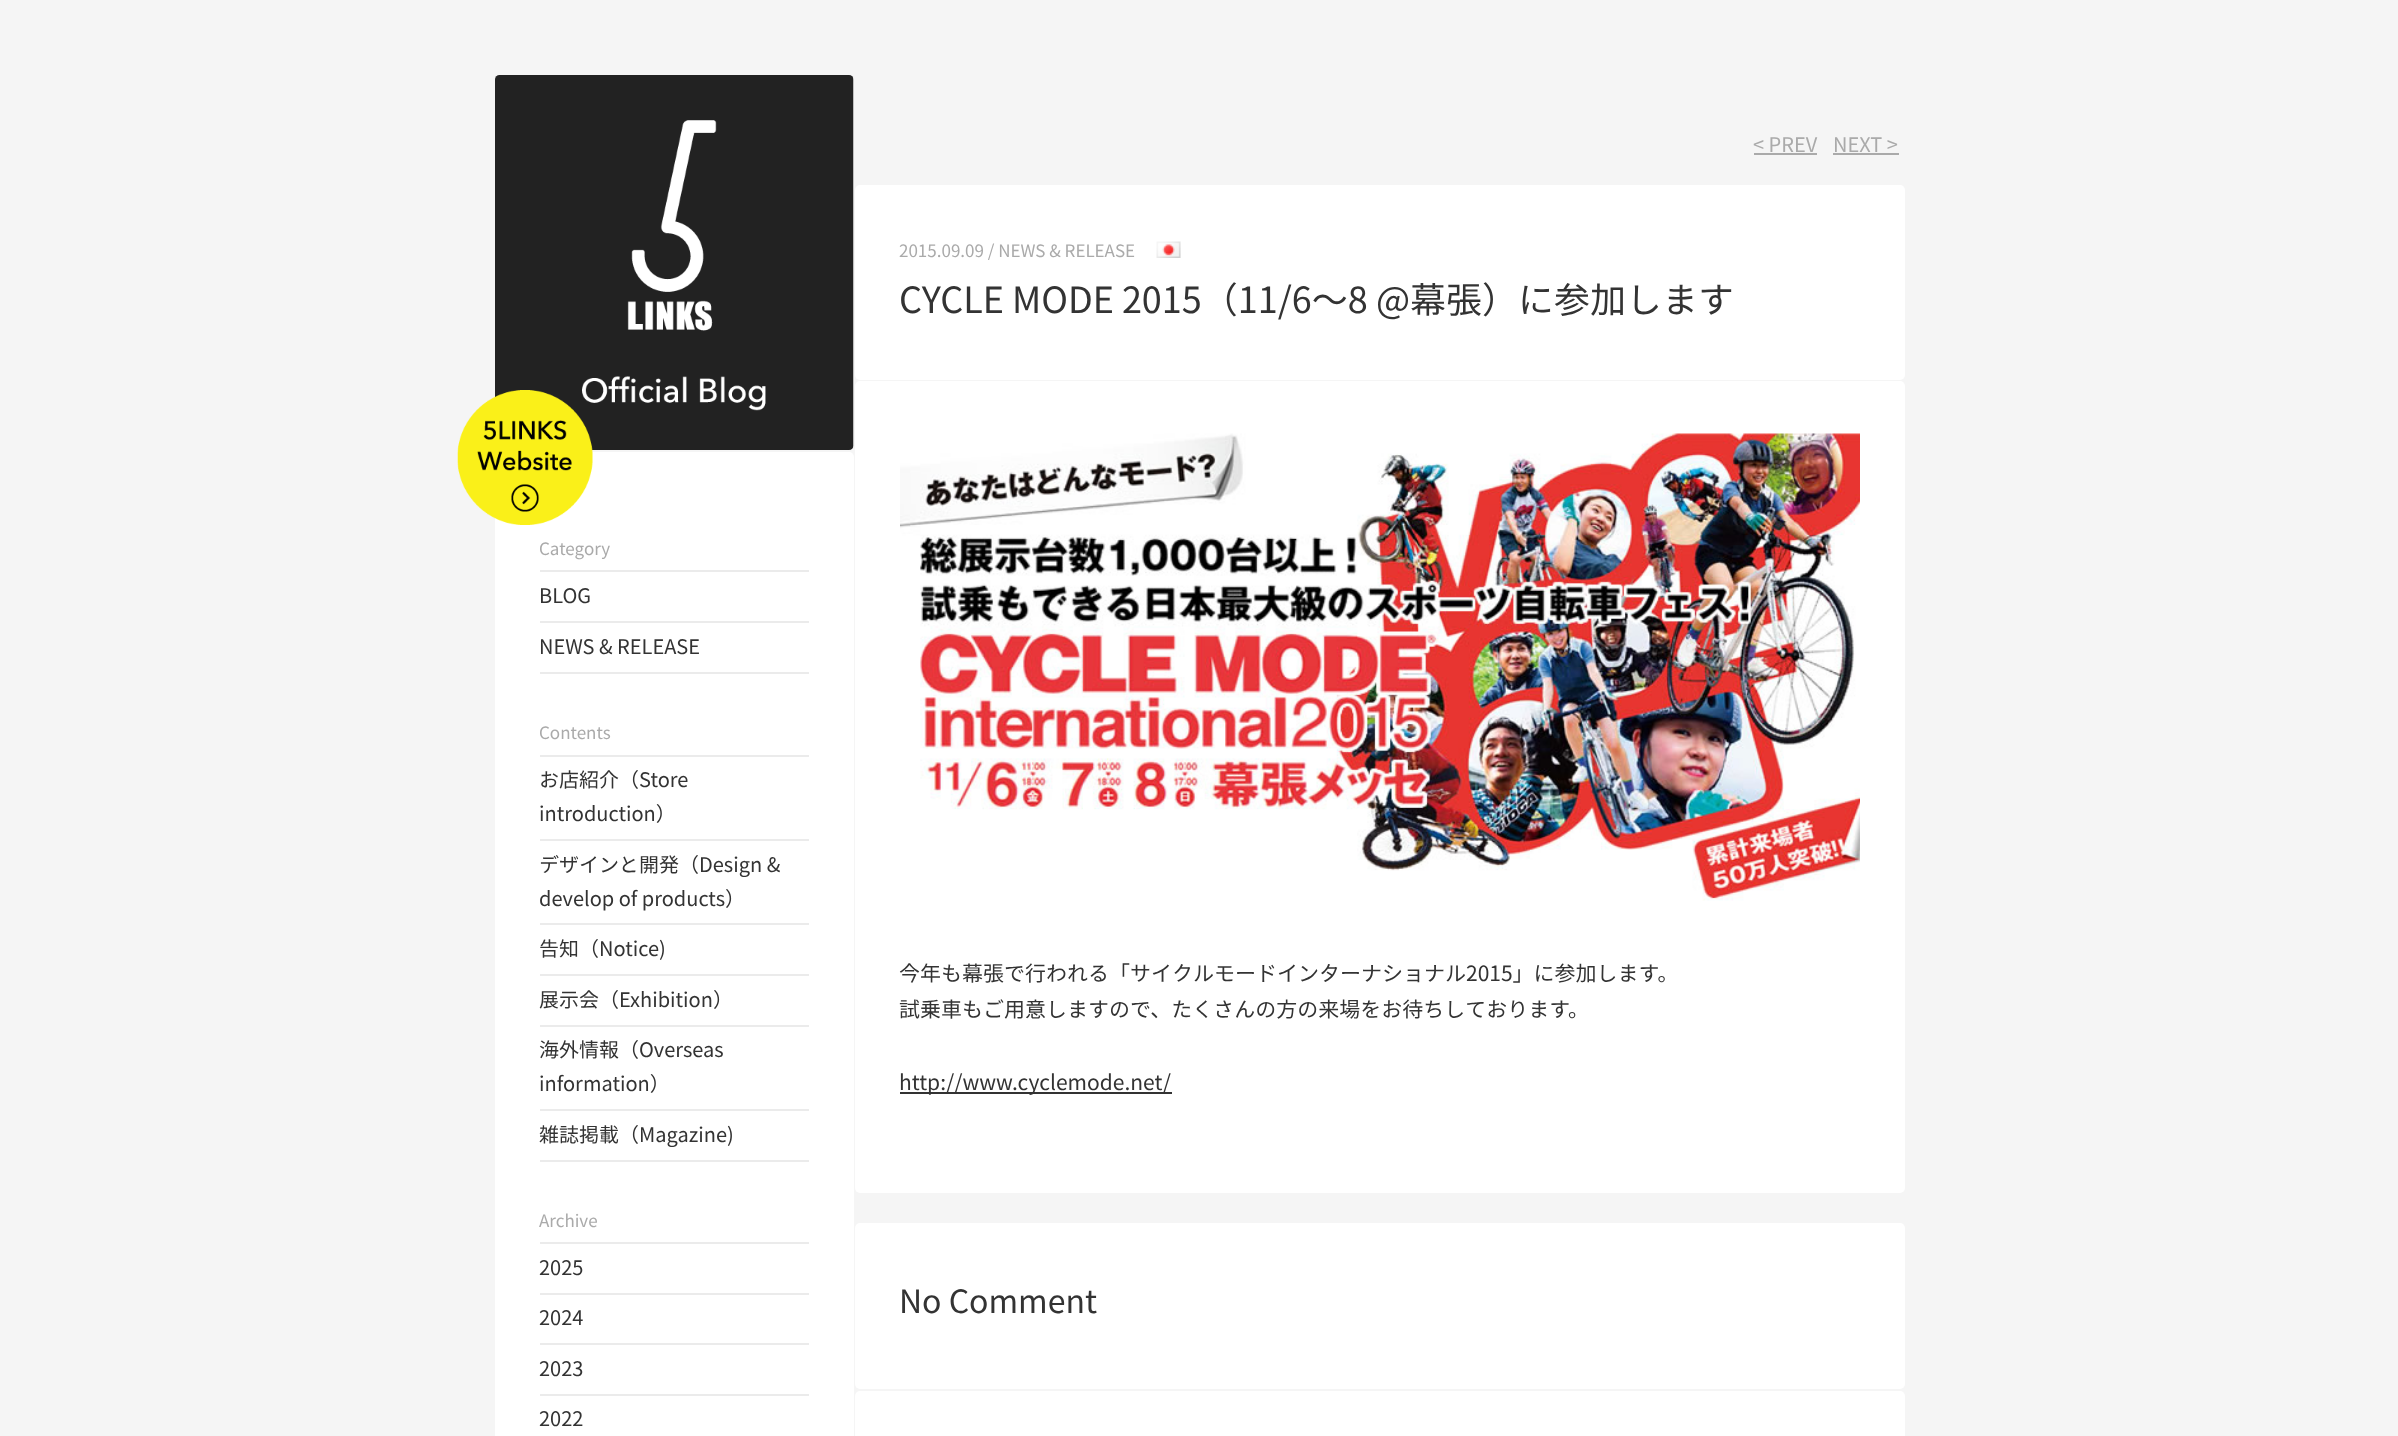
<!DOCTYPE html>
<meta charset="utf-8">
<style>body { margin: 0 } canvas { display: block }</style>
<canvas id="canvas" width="2398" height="1436"></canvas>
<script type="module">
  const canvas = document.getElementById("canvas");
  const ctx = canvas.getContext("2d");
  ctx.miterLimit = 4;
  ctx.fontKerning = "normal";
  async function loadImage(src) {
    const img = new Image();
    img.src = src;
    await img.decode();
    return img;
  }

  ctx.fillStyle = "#f5f5f5";
  ctx.fillRect(0, 0, 2398, 1436);
  ctx.drawImage(await loadImage("img1.png"), 495, 75, 359, 375);
  ctx.fillStyle = "#ffffff";
  ctx.beginPath();
  ctx.roundRect(495, 452, 359, 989, 5);
  ctx.fill();
  ctx.drawImage(await loadImage("img2.png"), 457, 390, 136, 135);
  ctx.fillStyle = "#ebebeb";
  ctx.fillRect(540, 570, 269, 2);
  ctx.font = "17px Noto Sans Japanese";
  ctx.fillStyle = "#aaaaaa";
  ctx.fillText("Category", 539, 555);
  ctx.fillStyle = "#ebebeb";
  ctx.fillRect(540, 621, 269, 2);
  ctx.font = "20px Noto Sans Japanese";
  ctx.fillStyle = "#333333";
  ctx.fillText("BLOG", 539, 603);
  ctx.fillStyle = "#ebebeb";
  ctx.fillRect(540, 672, 269, 2);
  ctx.fillStyle = "#333333";
  ctx.fillText("NEWS & RELEASE", 539, 654);
  ctx.fillStyle = "#ebebeb";
  ctx.fillRect(540, 755, 269, 2);
  ctx.font = "17px Noto Sans Japanese";
  ctx.fillStyle = "#aaaaaa";
  ctx.fillText("Contents", 539, 739);
  ctx.fillStyle = "#ebebeb";
  ctx.fillRect(540, 839, 269, 2);
  ctx.font = "20px Noto Sans Japanese";
  ctx.fillStyle = "#333333";
  ctx.fillText("お店紹介（Store", 539, 787);
  ctx.fillText("introduction）", 539, 821);
  ctx.fillStyle = "#ebebeb";
  ctx.fillRect(540, 923, 269, 2);
  ctx.fillStyle = "#333333";
  ctx.fillText("デザインと開発（Design &", 539, 872);
  ctx.fillText("develop of products）", 539, 906);
  ctx.fillStyle = "#ebebeb";
  ctx.fillRect(540, 974, 269, 2);
  ctx.fillStyle = "#333333";
  ctx.fillText("告知（Notice)", 539, 956);
  ctx.fillStyle = "#ebebeb";
  ctx.fillRect(540, 1025, 269, 2);
  ctx.fillStyle = "#333333";
  ctx.fillText("展示会（Exhibition）", 539, 1007);
  ctx.fillStyle = "#ebebeb";
  ctx.fillRect(540, 1109, 269, 2);
  ctx.fillStyle = "#333333";
  ctx.fillText("海外情報（Overseas", 539, 1057);
  ctx.fillText("information）", 539, 1091);
  ctx.fillStyle = "#ebebeb";
  ctx.fillRect(540, 1160, 269, 2);
  ctx.fillStyle = "#333333";
  ctx.fillText("雑誌掲載（Magazine)", 539, 1142);
  ctx.fillStyle = "#ebebeb";
  ctx.fillRect(540, 1242, 269, 2);
  ctx.font = "17px Noto Sans Japanese";
  ctx.fillStyle = "#aaaaaa";
  ctx.fillText("Archive", 539, 1227);
  ctx.fillStyle = "#ebebeb";
  ctx.fillRect(540, 1293, 269, 2);
  ctx.font = "20px Noto Sans Japanese";
  ctx.fillStyle = "#333333";
  ctx.fillText("2025", 539, 1275);
  ctx.fillStyle = "#ebebeb";
  ctx.fillRect(540, 1343, 269, 2);
  ctx.fillStyle = "#333333";
  ctx.fillText("2024", 539, 1325);
  ctx.fillStyle = "#ebebeb";
  ctx.fillRect(540, 1394, 269, 2);
  ctx.fillStyle = "#333333";
  ctx.fillText("2023", 539, 1376);
  ctx.fillText("2022", 539, 1426);
  ctx.fillStyle = "#aaaaaa";
  ctx.fillText("< PREV", 1753, 152);
  ctx.fillRect(1754, 153, 63, 2);
  ctx.fillText("NEXT >", 1833, 152);
  ctx.fillRect(1833, 153, 66, 2);
  ctx.fillStyle = "#ffffff";
  ctx.beginPath();
  ctx.roundRect(855, 185, 1050, 195, 5);
  ctx.fill();
  ctx.font = "17px Noto Sans Japanese";
  ctx.fillStyle = "#aaaaaa";
  ctx.fillText("2015.09.09 / NEWS & RELEASE", 899, 257);
  ctx.drawImage(await loadImage("img3.png"), 1156, 241, 25, 17);
  ctx.font = "36px Noto Sans Japanese";
  ctx.fillStyle = "#333333";
  ctx.fillText("CYCLE MODE 2015（11/6〜8 @幕張）に参加します", 899, 313);
  ctx.fillStyle = "#ffffff";
  ctx.beginPath();
  ctx.roundRect(855, 381, 1050, 812, 5);
  ctx.fill();
  ctx.drawImage(await loadImage("img4.png"), 900, 433, 960, 468);
  ctx.font = "21px Noto Sans Japanese";
  ctx.fillStyle = "#333333";
  ctx.fillText("今年も幕張で行われる「サイクルモードインターナショナル2015」に参加します。", 899, 981);
  ctx.fillText("試乗車もご用意しますので、たくさんの方の来場をお待ちしております。", 899, 1017);
  ctx.fillRect(900, 1092, 272, 2);
  ctx.fillText("http://www.cyclemode.net/", 899, 1090);
  ctx.fillStyle = "#ffffff";
  ctx.beginPath();
  ctx.roundRect(855, 1223, 1050, 166, 5);
  ctx.fill();
  ctx.font = "32px Noto Sans Japanese";
  ctx.fillStyle = "#333333";
  ctx.fillText("No Comment", 899, 1313);
  ctx.fillStyle = "#ffffff";
  ctx.beginPath();
  ctx.roundRect(855, 1391, 1050, 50, 5);
  ctx.fill();
</script>
